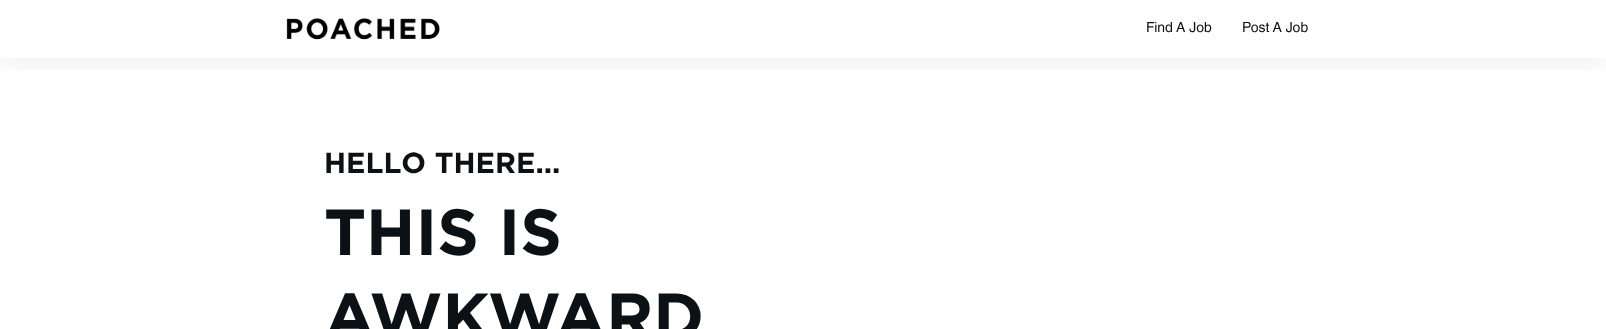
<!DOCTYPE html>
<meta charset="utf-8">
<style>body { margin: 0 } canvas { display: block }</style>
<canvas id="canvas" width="1606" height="329"></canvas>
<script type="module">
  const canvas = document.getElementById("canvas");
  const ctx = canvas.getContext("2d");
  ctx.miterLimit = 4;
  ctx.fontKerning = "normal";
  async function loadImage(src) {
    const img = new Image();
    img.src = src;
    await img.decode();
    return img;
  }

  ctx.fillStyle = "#ffffff";
  ctx.fillRect(0, 0, 1606, 329);
  ctx.save();
  ctx.beginPath();
  ctx.rect(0, 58, 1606, 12);
  ctx.clip();
  ctx.fillStyle = "rgba(0, 0, 0, 0.08)";
  ctx.filter = "blur(15px)";
  ctx.beginPath();
  ctx.rect(0, 2, 1606, 58);
  ctx.fill();
  ctx.filter = "none";
  ctx.restore();
  ctx.drawImage(await loadImage("img1.png"), 286, 18, 154, 22);
  ctx.font = "14px Helvetica";
  ctx.fillStyle = "#0c1115";
  ctx.fillText("Find A Job", 1146, 32);
  ctx.fillText("Post A Job", 1242, 32);
  ctx.font = "bold 29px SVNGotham";
  ctx.fillText("HELLO THERE...", 324, 173);
  ctx.font = "bold 65px SVNGotham";
  ctx.fillText("THIS IS", 324, 255);
  ctx.fillText("AWKWARD", 324, 339);
</script>
